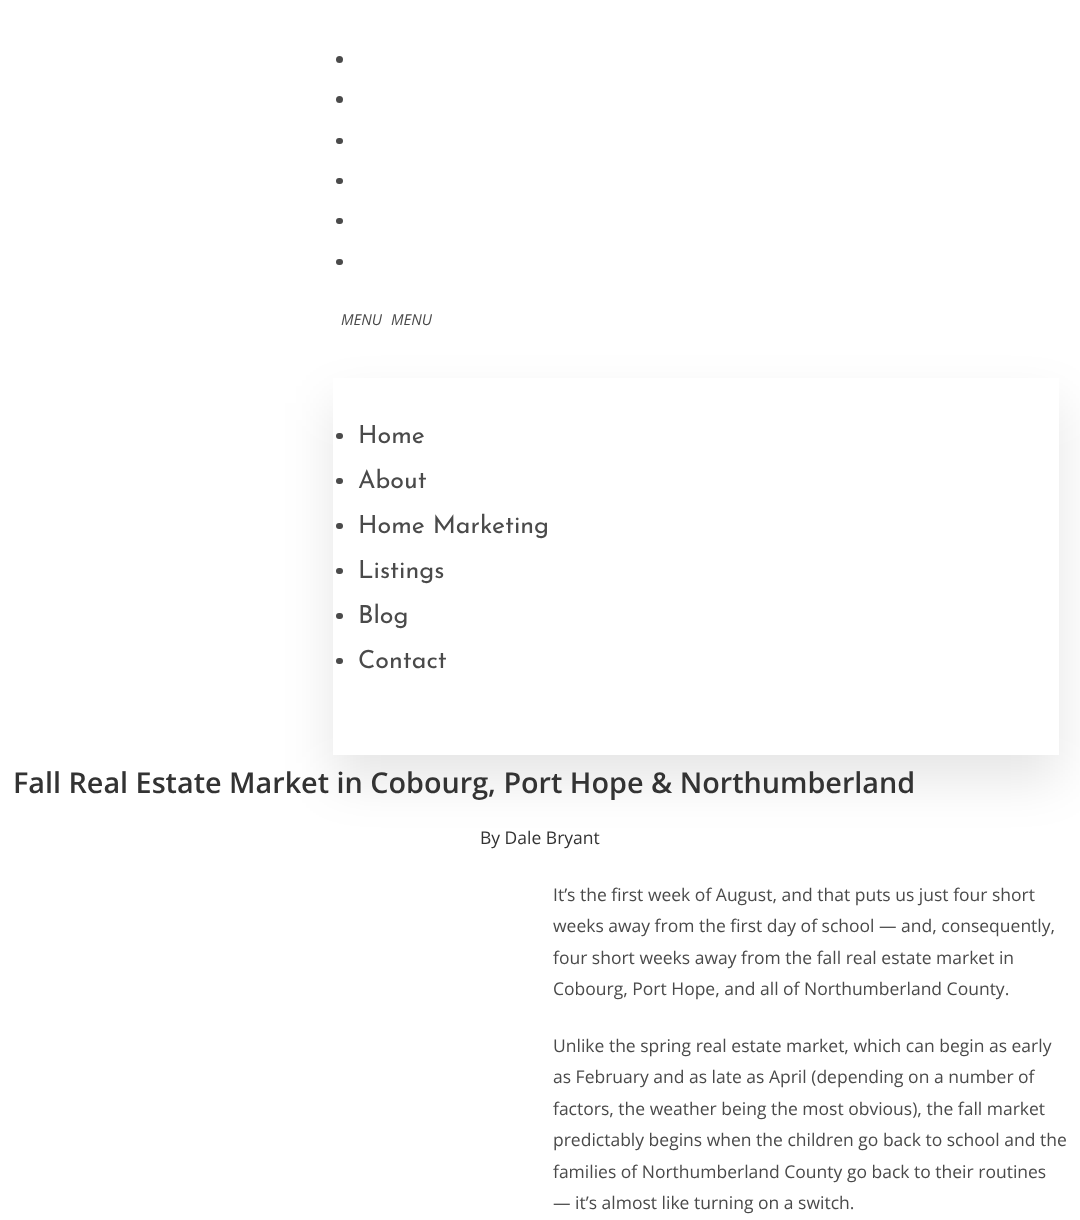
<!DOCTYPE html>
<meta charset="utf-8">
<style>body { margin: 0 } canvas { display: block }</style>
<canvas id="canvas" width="1080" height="1220"></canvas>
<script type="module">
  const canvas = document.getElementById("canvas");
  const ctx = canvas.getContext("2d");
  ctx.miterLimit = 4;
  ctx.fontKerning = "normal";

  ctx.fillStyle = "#ffffff";
  ctx.fillRect(0, 0, 1080, 1220);
  ctx.fillStyle = "#4a4a4a";
  ctx.beginPath();
  ctx.arc(339.5, 59.5, 3.5, 0, Math.PI * 2);
  ctx.fill();
  ctx.beginPath();
  ctx.arc(339.5, 99.5, 3.5, 0, Math.PI * 2);
  ctx.fill();
  ctx.beginPath();
  ctx.roundRect(336, 138, 7, 6, 3);
  ctx.fill();
  ctx.beginPath();
  ctx.roundRect(336, 178, 7, 6, 3);
  ctx.fill();
  ctx.beginPath();
  ctx.roundRect(336, 218, 7, 6, 3);
  ctx.fill();
  ctx.beginPath();
  ctx.roundRect(336, 259, 7, 6, 3);
  ctx.fill();
  ctx.font = "italic 15px Open Sans";
  ctx.fillText("MENU", 341, 325);
  ctx.fillText("MENU", 391, 325);
  ctx.save();
  ctx.beginPath();
  ctx.moveTo(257, 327);
  ctx.lineTo(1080, 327);
  ctx.lineTo(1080, 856);
  ctx.lineTo(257, 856);
  ctx.closePath();
  ctx.moveTo(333, 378);
  ctx.lineTo(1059, 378);
  ctx.lineTo(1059, 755);
  ctx.lineTo(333, 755);
  ctx.closePath();
  ctx.clip("evenodd");
  ctx.fillStyle = "rgba(0, 0, 0, 0.1)";
  ctx.filter = "blur(25px)";
  ctx.beginPath();
  ctx.rect(333, 403, 726, 377);
  ctx.fill();
  ctx.filter = "none";
  ctx.restore();
  ctx.beginPath();
  ctx.roundRect(336, 433, 7, 6, 3);
  ctx.fill();
  ctx.font = "25px Josefin Sans";
  ctx.fillText("Home", 358, 443);
  ctx.beginPath();
  ctx.roundRect(336, 478, 7, 6, 3);
  ctx.fill();
  ctx.fillText("About", 358, 488);
  ctx.beginPath();
  ctx.roundRect(336, 523, 7, 6, 3);
  ctx.fill();
  ctx.fillText("Home Marketing", 358, 533);
  ctx.beginPath();
  ctx.roundRect(336, 568, 7, 6, 3);
  ctx.fill();
  ctx.fillText("Listings", 358, 578);
  ctx.beginPath();
  ctx.roundRect(336, 613, 7, 6, 3);
  ctx.fill();
  ctx.fillText("Blog", 358, 623);
  ctx.beginPath();
  ctx.roundRect(336, 658, 7, 6, 3);
  ctx.fill();
  ctx.fillText("Contact", 358, 668);
  ctx.font = "600 28.75px Open Sans";
  ctx.fillStyle = "#333333";
  ctx.fillText("Fall Real Estate Market in Cobourg, Port Hope & Northumberland", 13, 793);
  ctx.font = "17.5px Open Sans";
  ctx.fillText("By Dale Bryant", 480, 844);
  ctx.fillStyle = "#4a4a4a";
  ctx.fillText("It’s the first week of August, and that puts us just four short", 553, 901);
  ctx.fillText("weeks away from the first day of school — and, consequently,", 553, 932);
  ctx.fillText("four short weeks away from the fall real estate market in", 553, 964);
  ctx.fillText("Cobourg, Port Hope, and all of Northumberland County.", 553, 995);
  ctx.fillText("Unlike the spring real estate market, which can begin as early", 553, 1052);
  ctx.fillText("as February and as late as April (depending on a number of", 553, 1083);
  ctx.fillText("factors, the weather being the most obvious), the fall market", 553, 1115);
  ctx.fillText("predictably begins when the children go back to school and the", 553, 1146);
  ctx.fillText("families of Northumberland County go back to their routines", 553, 1178);
  ctx.fillText("— it’s almost like turning on a switch.", 553, 1209);
</script>
